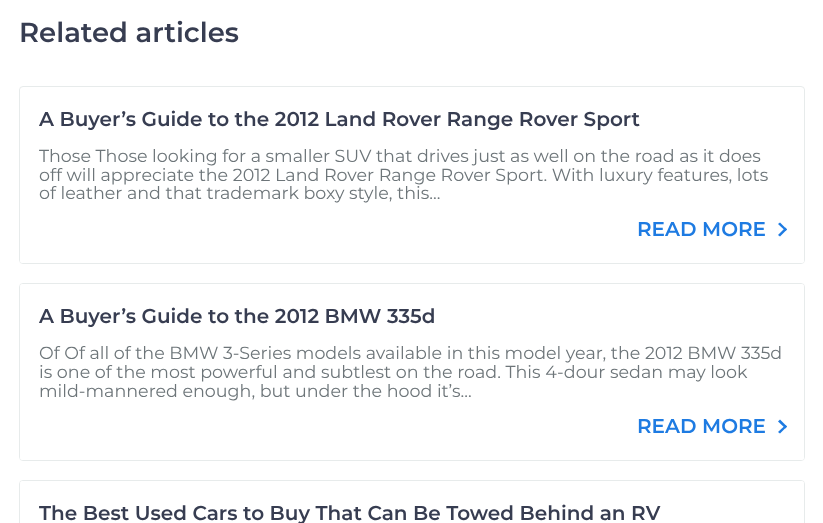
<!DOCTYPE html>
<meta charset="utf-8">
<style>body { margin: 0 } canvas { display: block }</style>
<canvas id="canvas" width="823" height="523"></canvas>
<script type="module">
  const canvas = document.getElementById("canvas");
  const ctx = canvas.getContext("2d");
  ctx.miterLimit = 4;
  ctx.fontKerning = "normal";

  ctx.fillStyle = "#ffffff";
  ctx.fillRect(0, 0, 823, 523);
  ctx.font = "600 27.5px Montserrat";
  ctx.fillStyle = "#373d51";
  ctx.fillText("Related articles", 19, 42);
  ctx.beginPath();
  ctx.roundRect(19.5, 86.5, 785, 177, 3.5);
  ctx.strokeStyle = "#e7ebeb";
  ctx.stroke();
  ctx.fillStyle = "#ffffff";
  ctx.beginPath();
  ctx.roundRect(20, 88, 784, 175, 2.5);
  ctx.fill();
  ctx.font = "600 20px Montserrat";
  ctx.fillStyle = "#373d51";
  ctx.fillText("A Buyer’s Guide to the 2012 Land Rover Range Rover Sport", 39, 126);
  ctx.font = "17.5px Montserrat";
  ctx.fillStyle = "#6d7579";
  ctx.fillText("Those Those looking for a smaller SUV that drives just as well on the road as it does", 39, 162);
  ctx.fillText("off will appreciate the 2012 Land Rover Range Rover Sport. With luxury features, lots", 39, 181);
  ctx.fillText("of leather and that trademark boxy style, this...", 39, 199);
  ctx.font = "600 20px Montserrat";
  ctx.fillStyle = "#1e7be2";
  ctx.fillText("READ MORE", 637, 236);
  ctx.beginPath();
  ctx.moveTo(778, 224);
  ctx.lineTo(780, 222.5);
  ctx.lineTo(787, 229.5);
  ctx.lineTo(785.5, 231);
  ctx.closePath();
  ctx.fill();
  ctx.beginPath();
  ctx.moveTo(778, 235);
  ctx.lineTo(785.5, 227.5);
  ctx.lineTo(787, 229.5);
  ctx.lineTo(780, 236.5);
  ctx.closePath();
  ctx.fill();
  ctx.beginPath();
  ctx.roundRect(19.5, 283.5, 785, 177, 3.5);
  ctx.stroke();
  ctx.fillStyle = "#ffffff";
  ctx.beginPath();
  ctx.roundRect(20, 284, 784, 176, 2.5);
  ctx.fill();
  ctx.fillStyle = "#373d51";
  ctx.fillText("A Buyer’s Guide to the 2012 BMW 335d", 39, 323);
  ctx.font = "17.5px Montserrat";
  ctx.fillStyle = "#6d7579";
  ctx.fillText("Of Of all of the BMW 3-Series models available in this model year, the 2012 BMW 335d", 39, 359);
  ctx.fillText("is one of the most powerful and subtlest on the road. This 4-dour sedan may look", 39, 378);
  ctx.fillText("mild-mannered enough, but under the hood it’s...", 39, 397);
  ctx.font = "600 20px Montserrat";
  ctx.fillStyle = "#1e7be2";
  ctx.fillText("READ MORE", 637, 433);
  ctx.beginPath();
  ctx.moveTo(778, 421.5);
  ctx.lineTo(780, 419.5);
  ctx.lineTo(787, 426.5);
  ctx.lineTo(785.5, 428.5);
  ctx.closePath();
  ctx.fill();
  ctx.beginPath();
  ctx.moveTo(778, 432);
  ctx.lineTo(785.5, 425);
  ctx.lineTo(787, 426.5);
  ctx.lineTo(780, 433.5);
  ctx.closePath();
  ctx.fill();
  ctx.beginPath();
  ctx.roundRect(19.5, 480.5, 785, 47, 3.5);
  ctx.stroke();
  ctx.fillStyle = "#ffffff";
  ctx.beginPath();
  ctx.roundRect(20, 481, 784, 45, 2.5);
  ctx.fill();
  ctx.fillStyle = "#373d51";
  ctx.fillText("The Best Used Cars to Buy That Can Be Towed Behind an RV", 39, 520);
</script>
